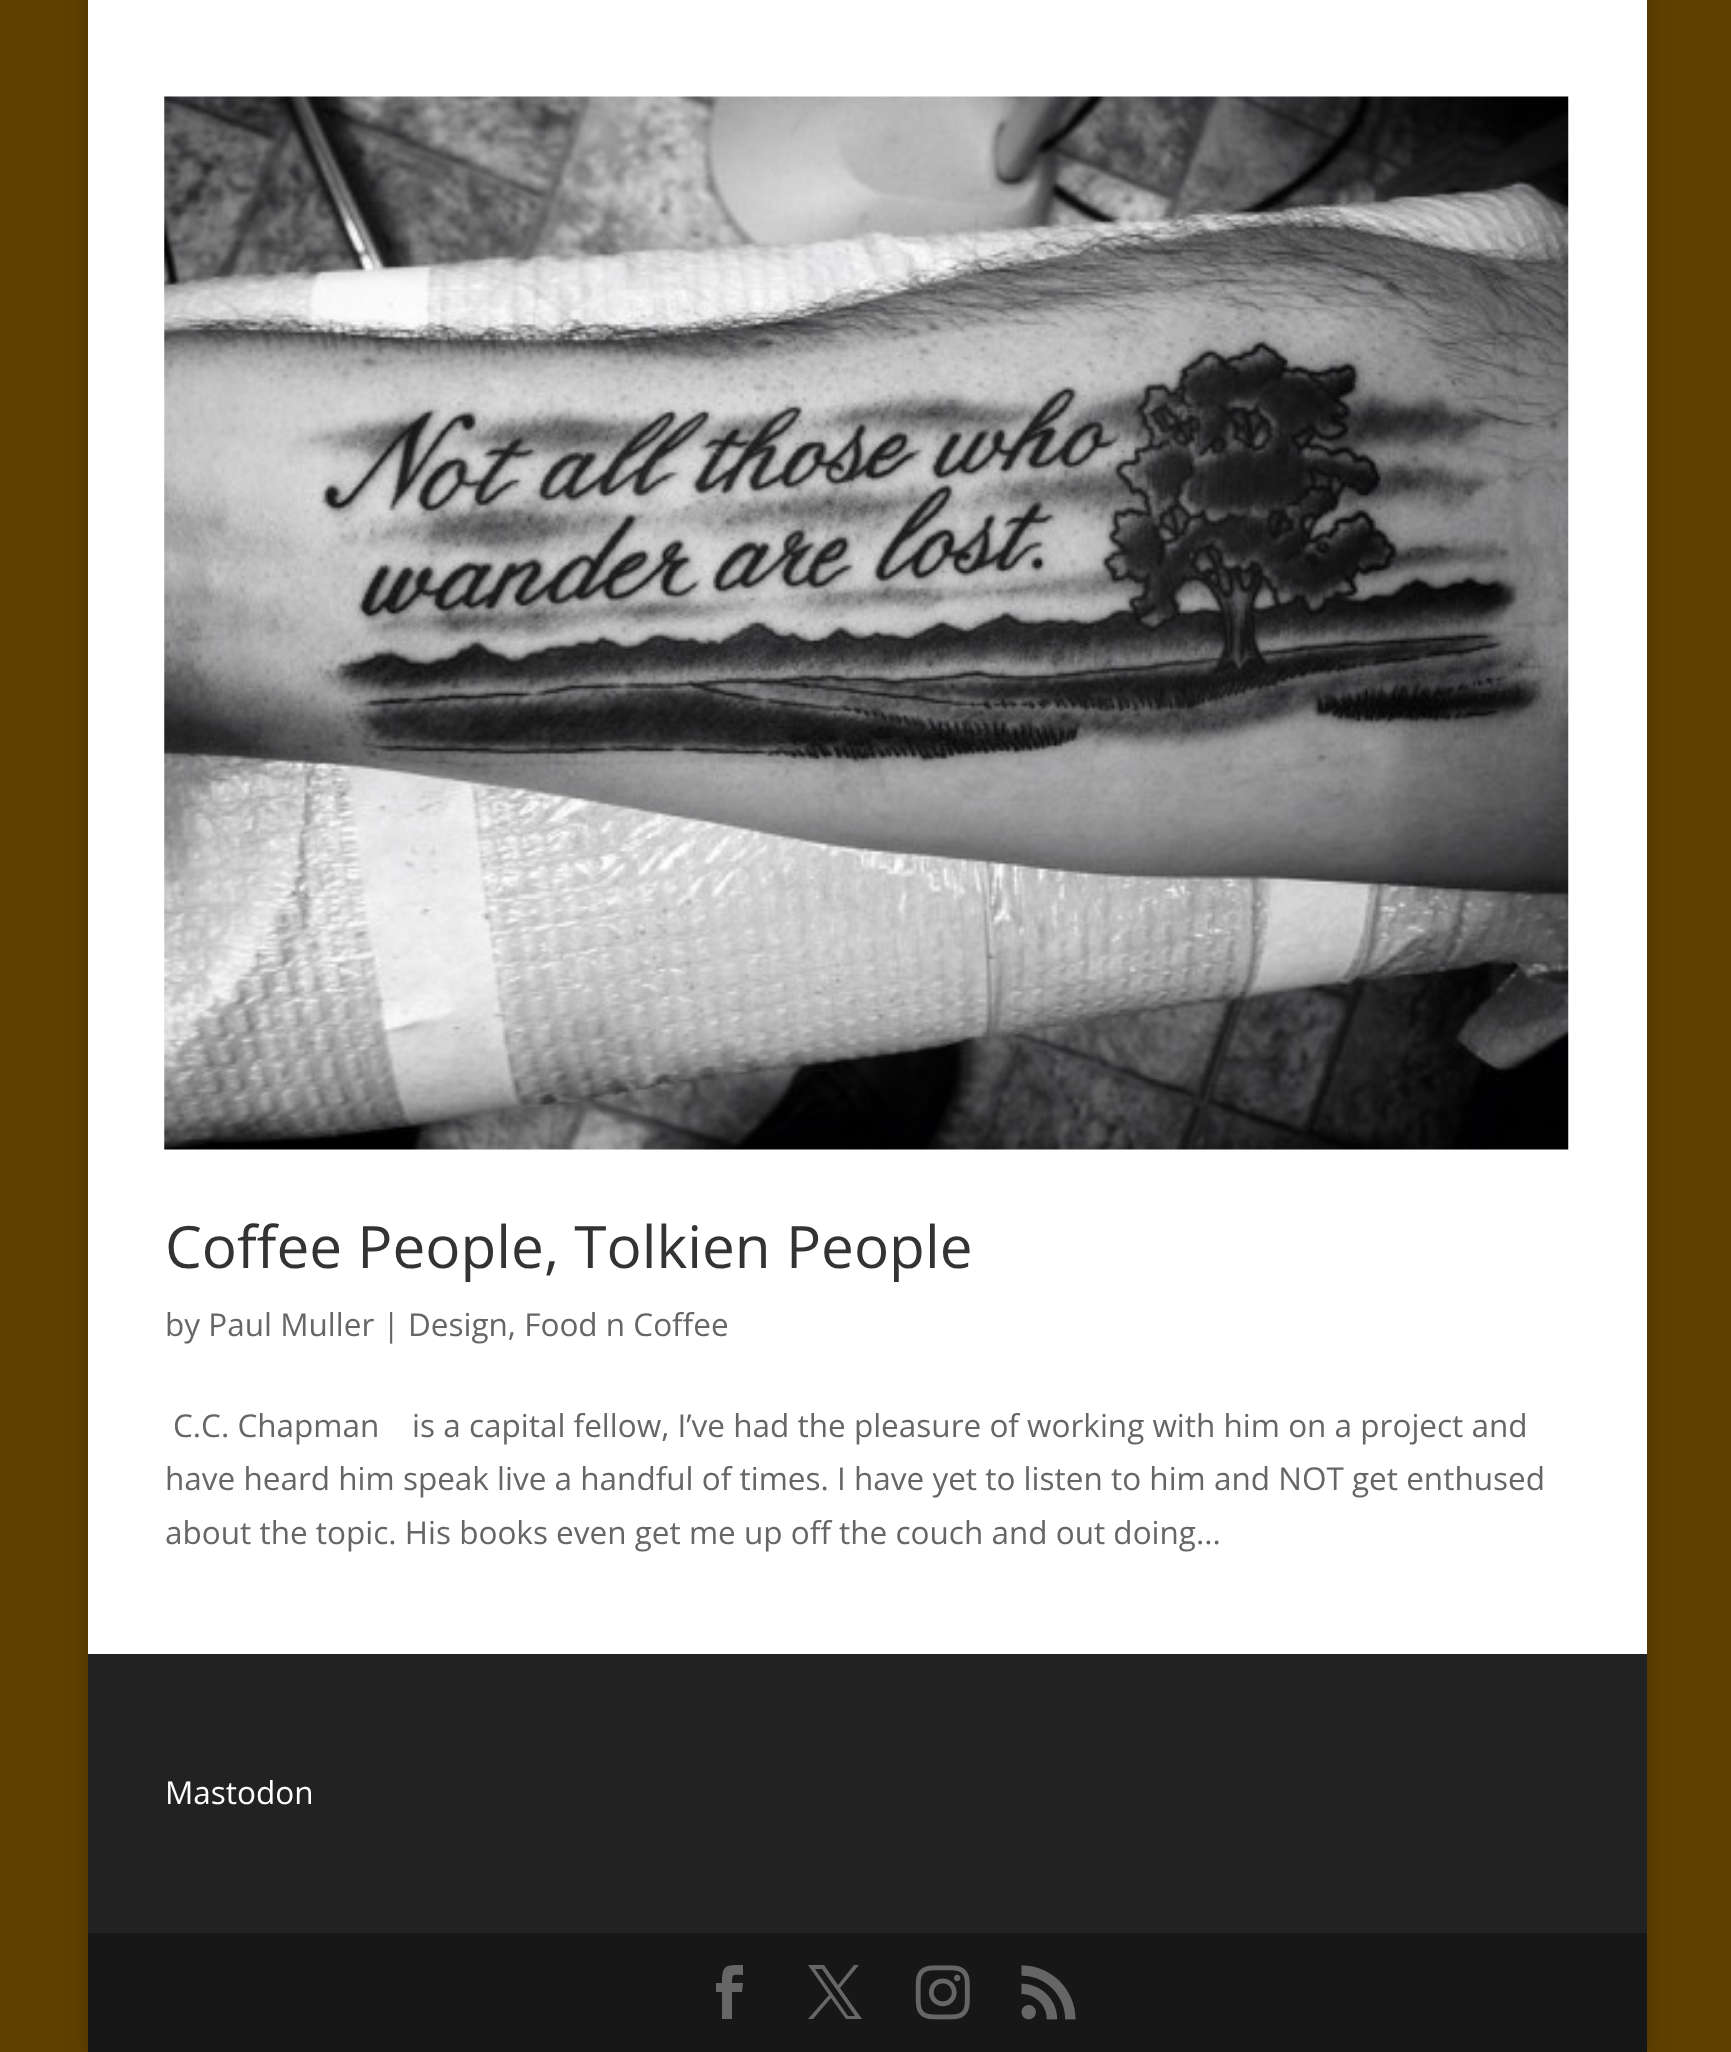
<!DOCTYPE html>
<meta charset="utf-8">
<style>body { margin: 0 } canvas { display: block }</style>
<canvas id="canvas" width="1731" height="2052"></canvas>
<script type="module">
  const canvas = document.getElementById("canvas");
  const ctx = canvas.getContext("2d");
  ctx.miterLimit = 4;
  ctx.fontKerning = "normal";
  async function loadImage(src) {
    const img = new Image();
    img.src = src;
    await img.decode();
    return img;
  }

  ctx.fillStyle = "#604000";
  ctx.fillRect(0, 0, 1731, 2052);
  ctx.fillStyle = "rgba(0, 0, 0, 0.2)";
  ctx.filter = "blur(11px)";
  ctx.beginPath();
  ctx.rect(88, -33, 1559, 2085);
  ctx.fill();
  ctx.filter = "none";
  ctx.fillStyle = "#ffffff";
  ctx.fillRect(88, 0, 1559, 1654);
  ctx.drawImage(await loadImage("img1.png"), 164, 96, 1405, 1054);
  ctx.font = "58.5px Open Sans";
  ctx.fillStyle = "#333333";
  ctx.fillText("Coffee People, Tolkien People", 165, 1268);
  ctx.font = "31.5px Open Sans";
  ctx.fillStyle = "#666666";
  ctx.fillText("by Paul Muller | Design, Food n Coffee", 165, 1336);
  ctx.fillText("C.C. Chapman    is a capital fellow, I’ve had the pleasure of working with him on a project and", 173, 1437);
  ctx.fillText("have heard him speak live a handful of times. I have yet to listen to him and NOT get enthused", 165, 1490);
  ctx.fillText("about the topic. His books even get me up off the couch and out doing...", 165, 1544);
  ctx.fillStyle = "#222222";
  ctx.fillRect(88, 1654, 1559, 279);
  ctx.fillStyle = "#ffffff";
  ctx.fillText("Mastodon", 165, 1804);
  ctx.fillStyle = "#171717";
  ctx.fillRect(88, 1933, 1559, 119);
  ctx.fillStyle = "#666666";
  ctx.beginPath();
  ctx.moveTo(722, 2019);
  ctx.lineTo(732, 2019);
  ctx.lineTo(732, 1992);
  ctx.lineTo(742, 1992);
  ctx.lineTo(743, 1983);
  ctx.lineTo(732, 1983);
  ctx.bezierCurveTo(732, 1973, 733, 1975, 743, 1975);
  ctx.lineTo(743, 1965);
  ctx.bezierCurveTo(725, 1965, 722, 1965, 722, 1983);
  ctx.lineTo(716, 1983);
  ctx.lineTo(716, 1992);
  ctx.lineTo(722, 1992);
  ctx.closePath();
  ctx.fill();
  ctx.beginPath();
  ctx.moveTo(808, 1965);
  ctx.lineTo(829, 1995);
  ctx.lineTo(808, 2019);
  ctx.lineTo(813, 2019);
  ctx.lineTo(831, 1998);
  ctx.lineTo(846, 2019);
  ctx.lineTo(862, 2019);
  ctx.lineTo(840, 1988);
  ctx.lineTo(859, 1965);
  ctx.lineTo(854, 1965);
  ctx.lineTo(838, 1985);
  ctx.lineTo(824, 1965);
  ctx.closePath();
  ctx.moveTo(815, 1969);
  ctx.lineTo(822, 1969);
  ctx.lineTo(855, 2016);
  ctx.lineTo(848, 2016);
  ctx.closePath();
  ctx.fill();
  ctx.drawImage(await loadImage("img2.png"), 915, 1965, 55, 55);
  ctx.drawImage(await loadImage("img3.png"), 1021, 1965, 55, 55);
</script>
